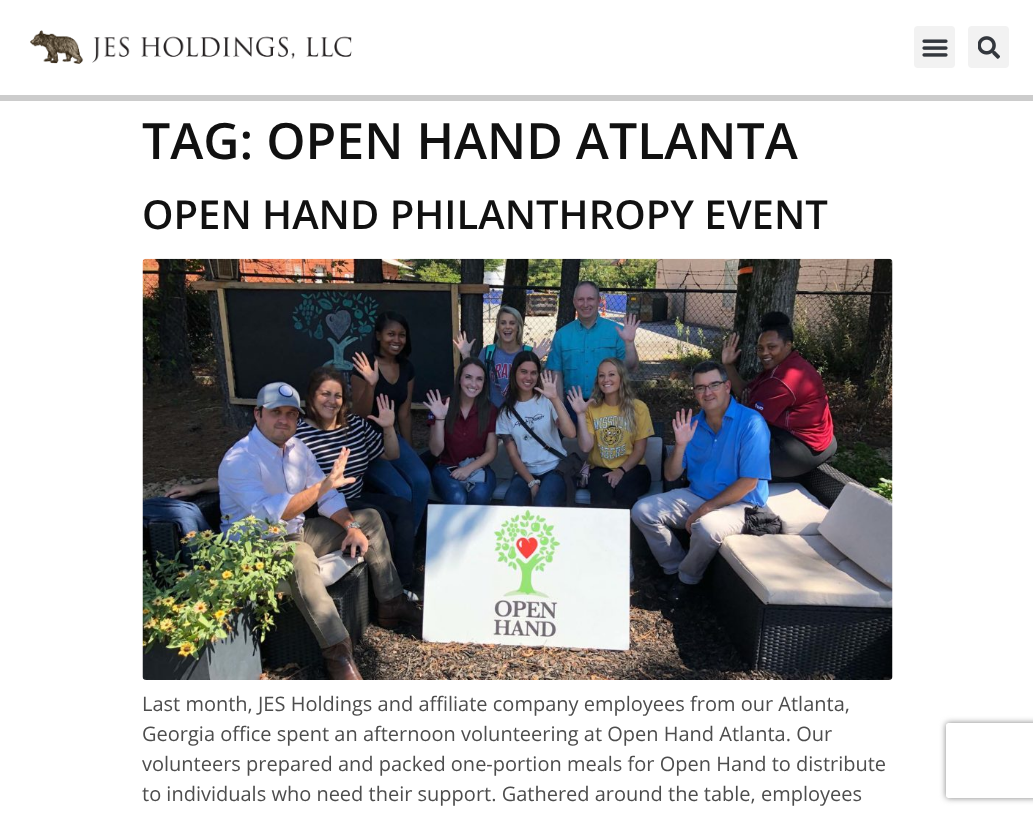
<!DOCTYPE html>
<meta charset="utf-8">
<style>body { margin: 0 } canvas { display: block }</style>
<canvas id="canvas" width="1033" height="814"></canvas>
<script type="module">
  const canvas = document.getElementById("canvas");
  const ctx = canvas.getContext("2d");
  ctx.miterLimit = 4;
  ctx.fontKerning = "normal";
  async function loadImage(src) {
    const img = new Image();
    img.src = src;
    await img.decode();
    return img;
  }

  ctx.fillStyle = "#ffffff";
  ctx.fillRect(0, 0, 1033, 814);
  ctx.fillStyle = "#cccccc";
  ctx.fillRect(0, 95, 1033, 6);
  ctx.drawImage(await loadImage("img1.png"), 30, 30, 322, 34);
  ctx.fillStyle = "#f2f2f2";
  ctx.beginPath();
  ctx.roundRect(914, 26, 41, 42, 4);
  ctx.fill();
  ctx.drawImage(await loadImage("img2.png"), 922, 39, 26, 18);
  ctx.beginPath();
  ctx.roundRect(968, 26, 41, 42, 4);
  ctx.fill();
  ctx.drawImage(await loadImage("img3.png"), 978, 36, 22, 23);
  ctx.font = "600 50px Open Sans";
  ctx.fillStyle = "#111111";
  ctx.fillText("TAG: OPEN HAND ATLANTA", 142, 159);
  ctx.font = "600 40px Open Sans";
  ctx.fillText("OPEN HAND PHILANTHROPY EVENT", 142, 229);
  ctx.drawImage(await loadImage("img4.png"), 142, 258, 751, 422);
  ctx.font = "20px Open Sans";
  ctx.fillStyle = "#4d4d4d";
  ctx.fillText("Last month, JES Holdings and affiliate company employees from our Atlanta,", 142, 711);
  ctx.fillText("Georgia office spent an afternoon volunteering at Open Hand Atlanta. Our", 142, 741);
  ctx.fillText("volunteers prepared and packed one-portion meals for Open Hand to distribute", 142, 771);
  ctx.fillText("to individuals who need their support. Gathered around the table, employees", 142, 801);
  ctx.save();
  ctx.beginPath();
  ctx.moveTo(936, 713);
  ctx.lineTo(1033, 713);
  ctx.lineTo(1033, 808);
  ctx.lineTo(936, 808);
  ctx.closePath();
  ctx.moveTo(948.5, 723);
  ctx.lineTo(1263.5, 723);
  ctx.bezierCurveTo(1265, 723, 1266, 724, 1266, 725.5);
  ctx.lineTo(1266, 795.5);
  ctx.bezierCurveTo(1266, 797, 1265, 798, 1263.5, 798);
  ctx.lineTo(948.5, 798);
  ctx.bezierCurveTo(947, 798, 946, 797, 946, 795.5);
  ctx.lineTo(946, 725.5);
  ctx.bezierCurveTo(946, 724, 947, 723, 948.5, 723);
  ctx.closePath();
  ctx.clip("evenodd");
  ctx.fillStyle = "#808080";
  ctx.filter = "blur(3px)";
  ctx.beginPath();
  ctx.roundRect(946, 723, 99, 75, 2.5);
  ctx.fill();
  ctx.filter = "none";
  ctx.restore();
</script>
